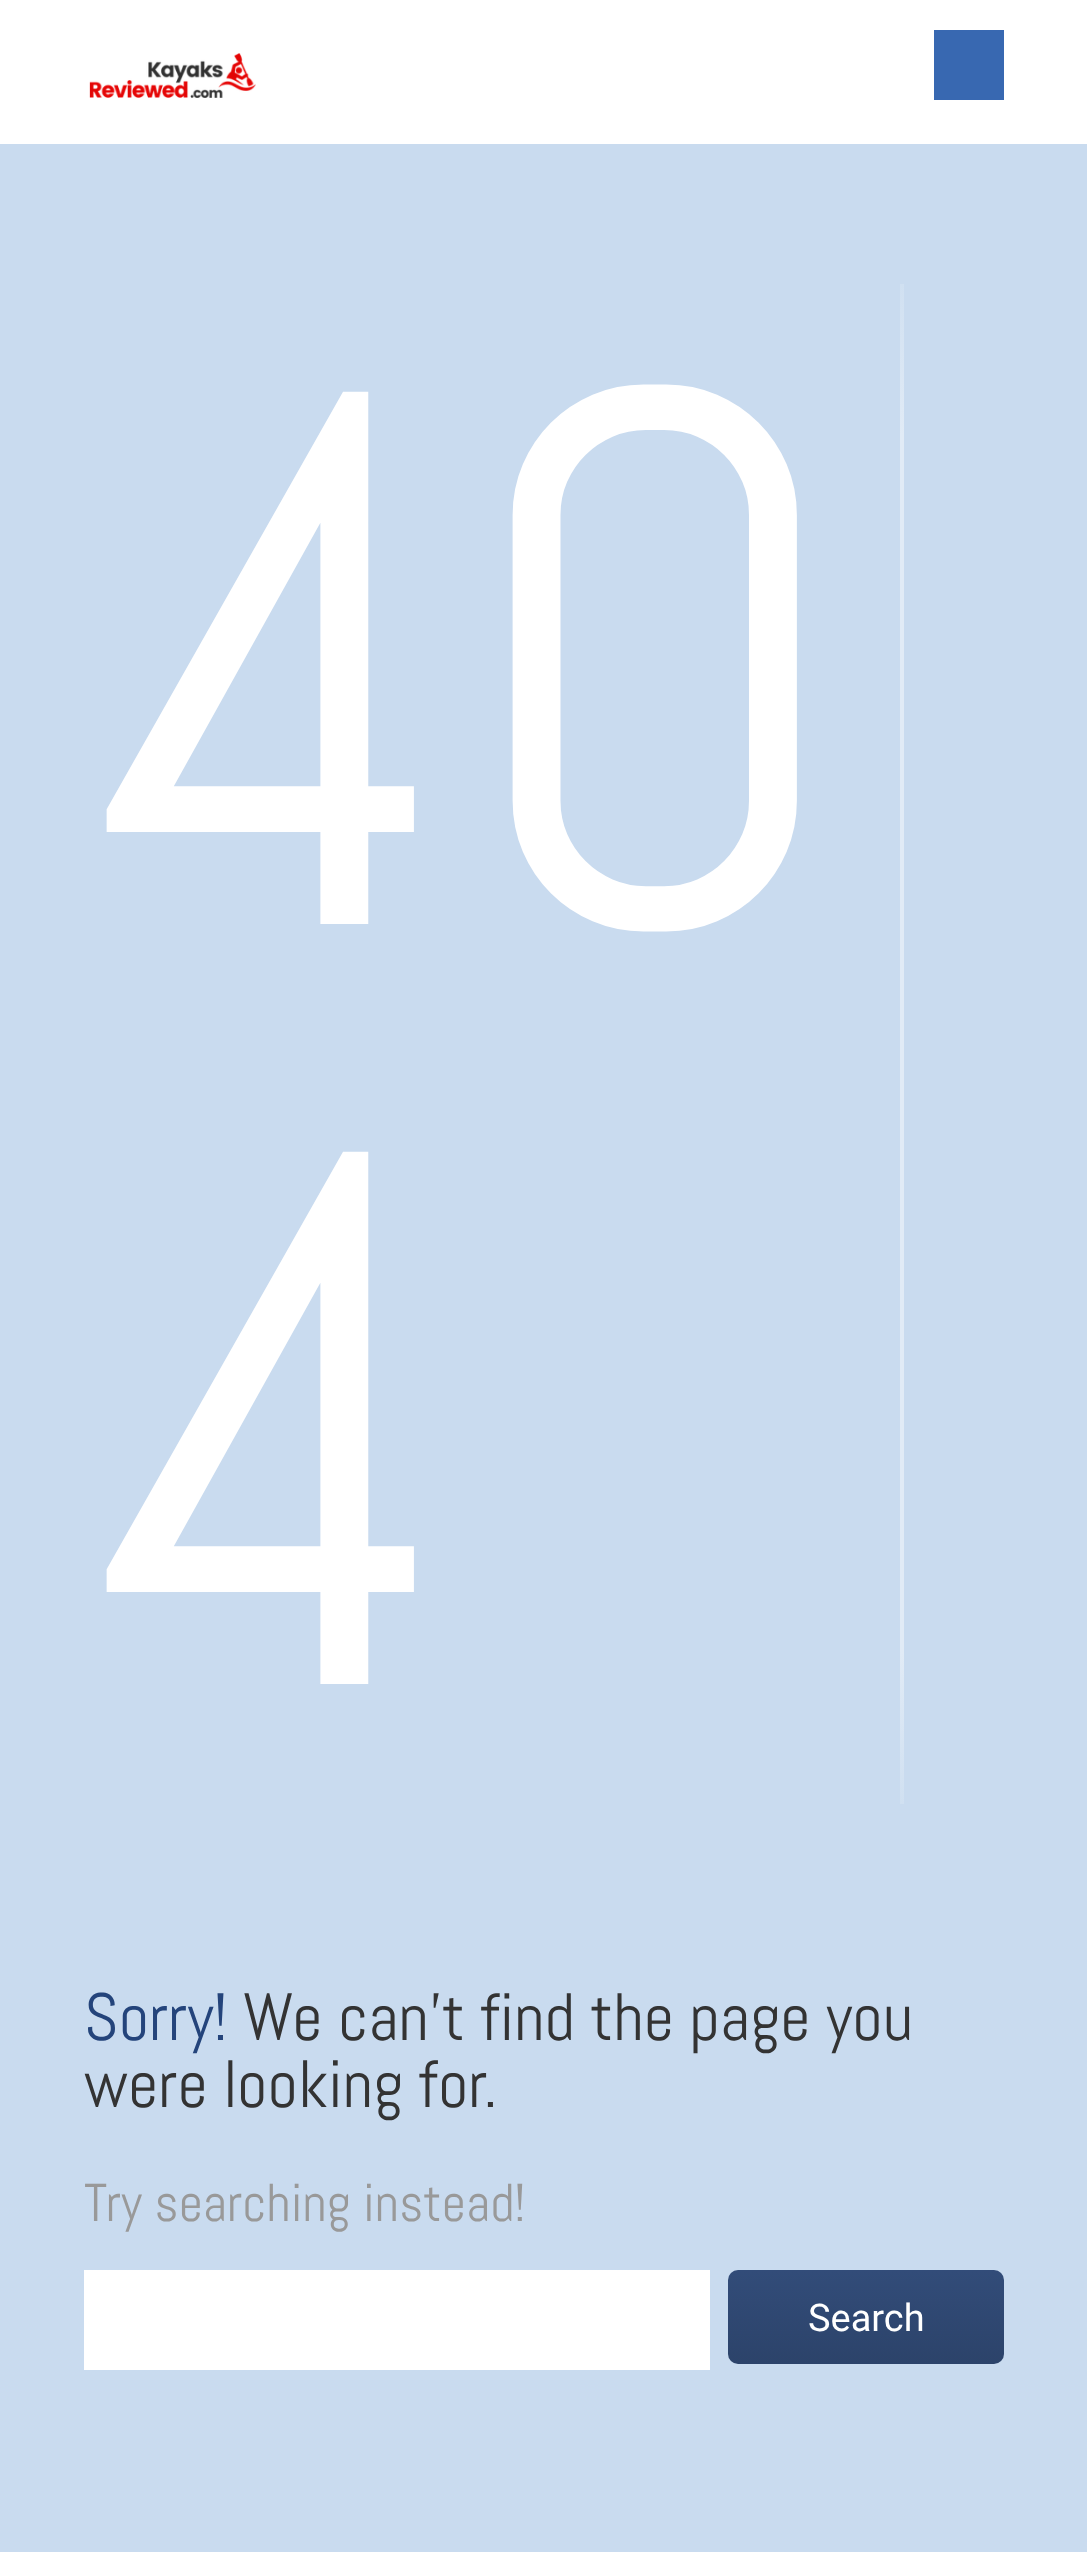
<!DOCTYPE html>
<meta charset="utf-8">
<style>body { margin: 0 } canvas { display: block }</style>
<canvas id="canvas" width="1087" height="2552"></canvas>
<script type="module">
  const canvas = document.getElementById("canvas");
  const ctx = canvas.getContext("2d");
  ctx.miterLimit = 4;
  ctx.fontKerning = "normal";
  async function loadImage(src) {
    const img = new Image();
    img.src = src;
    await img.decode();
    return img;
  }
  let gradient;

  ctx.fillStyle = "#ffffff";
  ctx.fillRect(0, 0, 1087, 2552);
  ctx.drawImage(await loadImage("img1.png"), 89, 53, 167, 45);
  ctx.fillStyle = "#3868b1";
  ctx.fillRect(934, 30, 70, 70);
  ctx.fillStyle = "#c9dbef";
  ctx.fillRect(0, 144, 1087, 2408);
  ctx.font = "760px Abel";
  ctx.fillStyle = "#ffffff";
  ctx.fillText("40", 84, 924);
  ctx.fillText("4", 84, 1684);
  gradient = ctx.createLinearGradient(902, 284, 902, 1804);
  gradient.addColorStop(0, "#d0e0f1");
  gradient.addColorStop(0.1, "#e1ebf6");
  gradient.addColorStop(0.9, "#e1ebf6");
  gradient.addColorStop(1, "#d0e0f1");
  ctx.fillStyle = gradient;
  ctx.fillRect(900, 284, 4, 1520);
  ctx.font = "66.75px Abel";
  ctx.fillStyle = "#24447b";
  ctx.fillText("Sorry!", 84, 2040);
  ctx.fillStyle = "#333333";
  ctx.fillText("We can’t find the page you", 243, 2040);
  ctx.fillText("were looking for.", 84, 2107);
  ctx.font = "53.25px Abel";
  ctx.fillStyle = "#999999";
  ctx.fillText("Try searching instead!", 84, 2221);
  ctx.fillStyle = "#ffffff";
  ctx.fillRect(84, 2270, 626, 100);
  gradient = ctx.createLinearGradient(866, 2270, 866, 2364);
  gradient.addColorStop(0, "#324c79");
  gradient.addColorStop(1, "#2c436a");
  ctx.fillStyle = gradient;
  ctx.beginPath();
  ctx.roundRect(728, 2270, 276, 94, 10);
  ctx.fill();
  ctx.font = "38px Roboto";
  ctx.fillStyle = "#ffffff";
  ctx.fillText("Search", 808, 2331);
</script>
